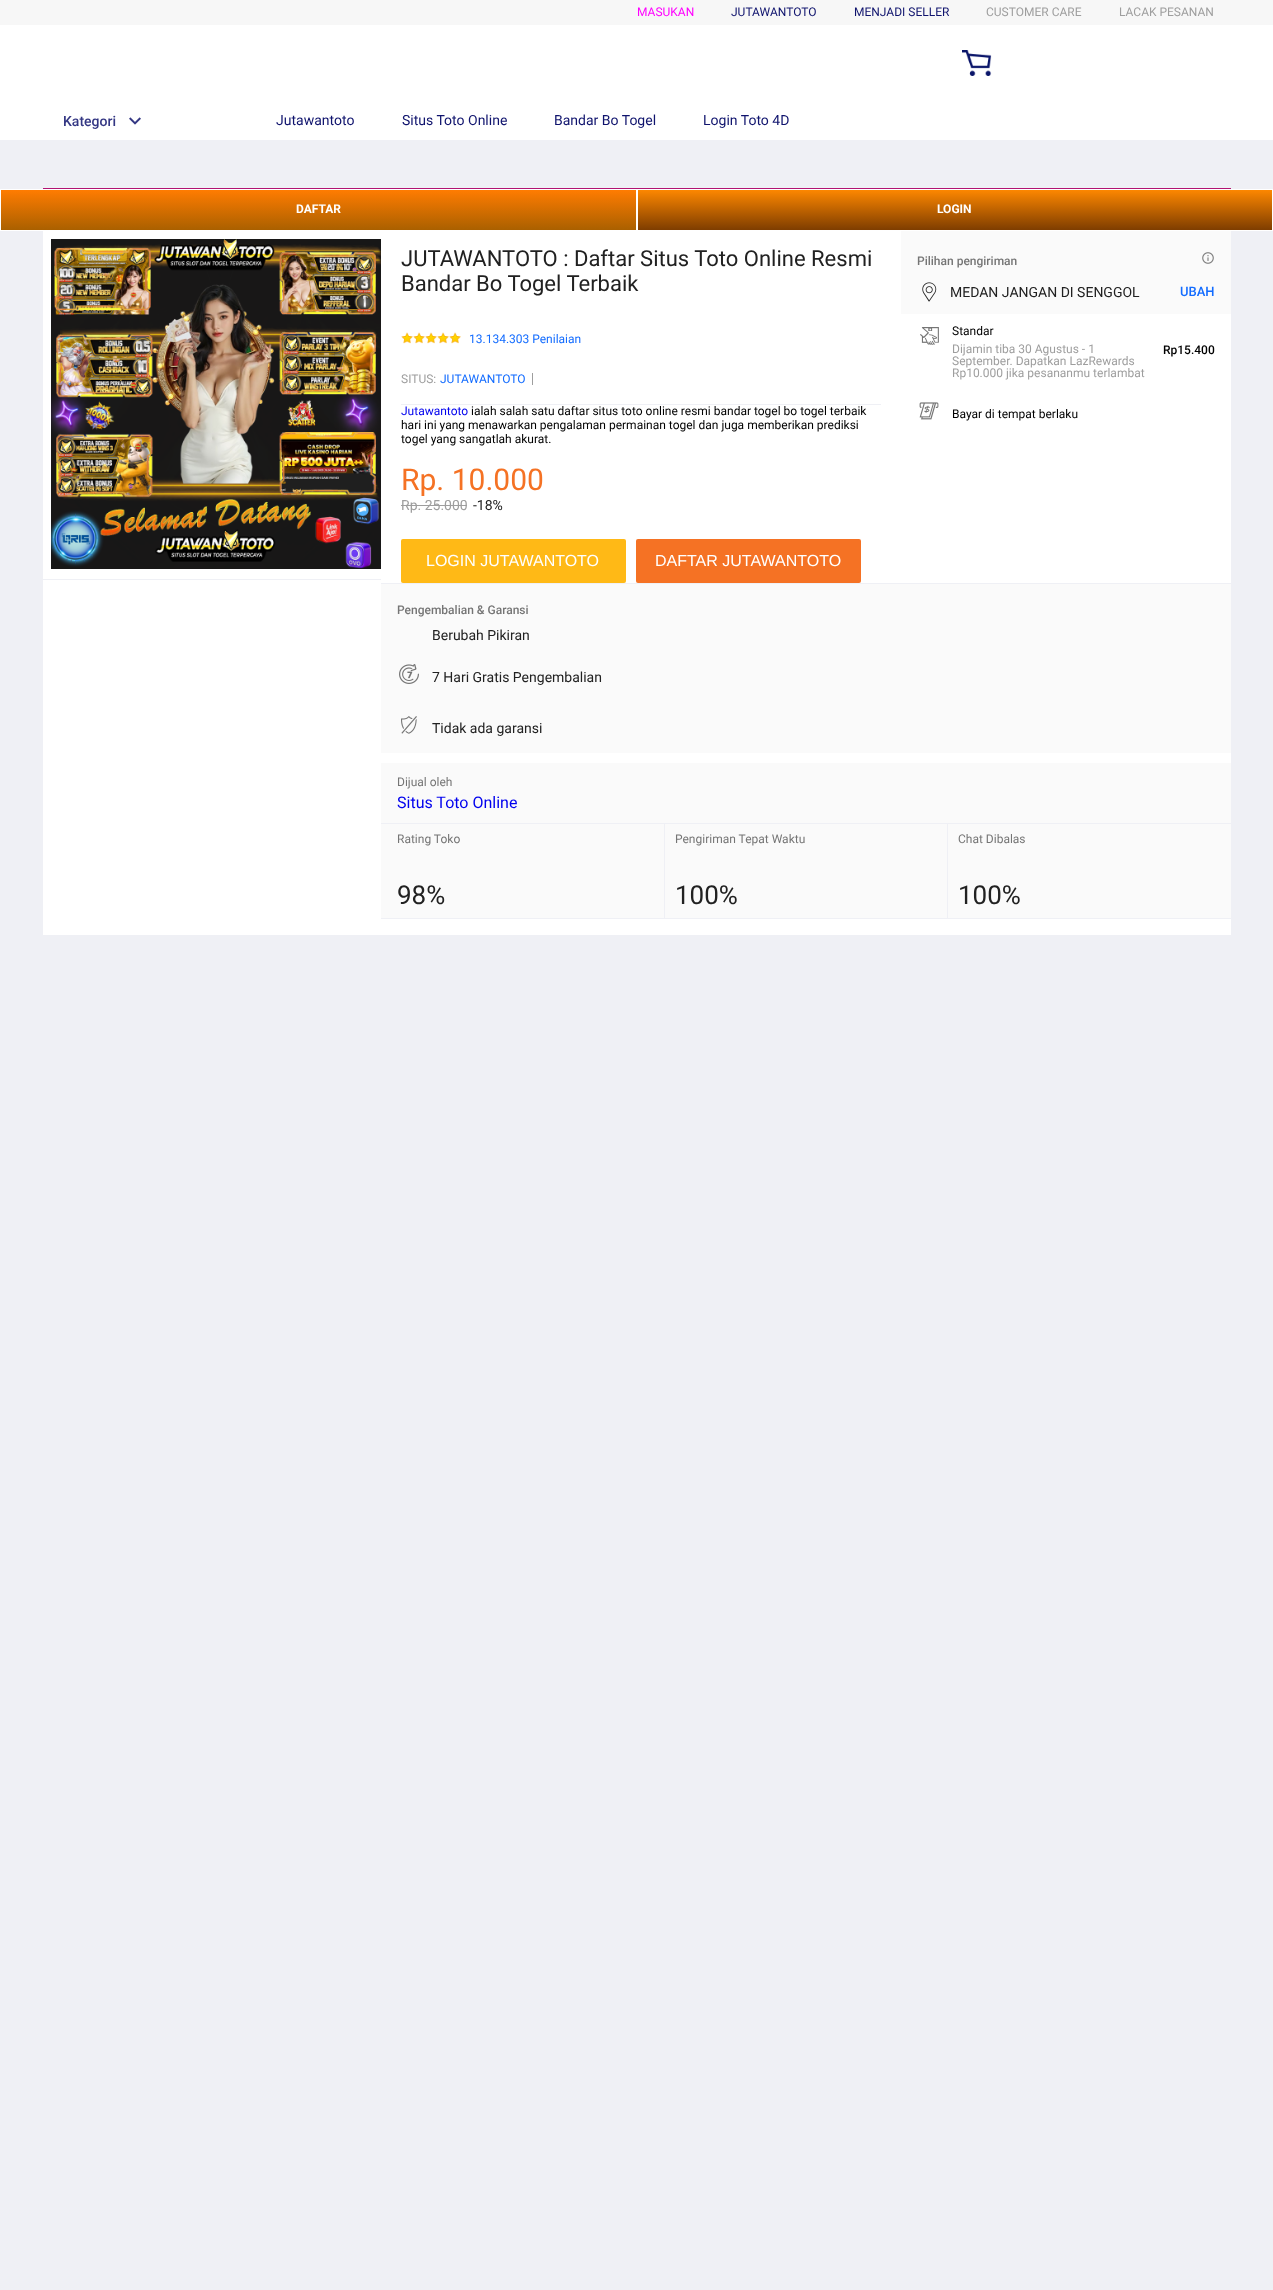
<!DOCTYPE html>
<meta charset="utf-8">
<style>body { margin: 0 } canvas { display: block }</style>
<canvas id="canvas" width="1273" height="2290"></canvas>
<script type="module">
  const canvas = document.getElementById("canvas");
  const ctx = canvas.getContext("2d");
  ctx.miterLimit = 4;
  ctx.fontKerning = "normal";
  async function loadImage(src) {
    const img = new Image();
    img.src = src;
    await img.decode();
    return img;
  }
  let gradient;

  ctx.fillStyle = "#eff0f5";
  ctx.fillRect(0, 0, 1273, 2290);
  ctx.fillStyle = "#ffffff";
  ctx.fillRect(0, 25, 1273, 115);
  ctx.fillStyle = "#f7f7f7";
  ctx.fillRect(0, 0, 1273, 25);
  ctx.font = "12px Roboto";
  ctx.fillStyle = "#ff00ff";
  ctx.fillText("MASUKAN", 637, 16);
  ctx.fillStyle = "#0f136d";
  ctx.fillText("JUTAWANTOTO", 731, 16);
  ctx.fillText("MENJADI SELLER", 854, 16);
  ctx.fillStyle = "#9e9e9e";
  ctx.fillText("CUSTOMER CARE", 986, 16);
  ctx.fillText("LACAK PESANAN", 1119, 16);
  ctx.drawImage(await loadImage("img1.png"), 962, 50, 30, 26);
  ctx.font = "500 14px Roboto";
  ctx.fillStyle = "#333683";
  ctx.fillText("Kategori", 63, 126);
  ctx.drawImage(await loadImage("img2.png"), 129, 117, 12, 8);
  ctx.font = "14px Roboto";
  ctx.fillStyle = "#0f136d";
  ctx.fillText("Jutawantoto", 276, 125);
  ctx.fillText("Situs Toto Online", 402, 125);
  ctx.fillText("Bandar Bo Togel", 554, 125);
  ctx.fillText("Login Toto 4D", 703, 125);
  ctx.fillStyle = "#b31372";
  ctx.fillRect(43, 188, 1188, 1);
  gradient = ctx.createLinearGradient(319, 190, 319, 230);
  gradient.addColorStop(0, "#ff7c01");
  gradient.addColorStop(1, "#aa6000");
  ctx.fillStyle = gradient;
  ctx.fillRect(1, 190, 635, 40);
  ctx.strokeStyle = "#ffffff";
  ctx.strokeRect(0.5, 189.5, 636, 41);
  ctx.font = "bold 12px Roboto";
  ctx.fillStyle = "#ffffff";
  ctx.fillText("DAFTAR", 296, 213);
  gradient = ctx.createLinearGradient(955, 190, 955, 230);
  gradient.addColorStop(0, "#fd8700");
  gradient.addColorStop(1, "#7e3d00");
  ctx.fillStyle = gradient;
  ctx.fillRect(638, 190, 634, 40);
  ctx.strokeRect(637.5, 189.5, 635, 41);
  ctx.fillStyle = "#ffffff";
  ctx.fillText("LOGIN", 937, 213);
  ctx.fillRect(43, 231, 1188, 704);
  ctx.fillStyle = "#eff0f5";
  ctx.fillRect(43, 579, 338, 1);
  ctx.drawImage(await loadImage("img3.png"), 51, 239, 330, 330);
  ctx.font = "22px Roboto";
  ctx.fillStyle = "#212121";
  ctx.fillText("JUTAWANTOTO : Daftar Situs Toto Online Resmi", 401, 266);
  ctx.fillText("Bandar Bo Togel Terbaik", 401, 291);
  ctx.drawImage(await loadImage("img4.png"), 401, 332, 12, 12);
  ctx.drawImage(await loadImage("img4.png"), 413, 332, 12, 12);
  ctx.drawImage(await loadImage("img4.png"), 425, 332, 12, 12);
  ctx.drawImage(await loadImage("img4.png"), 437, 332, 12, 12);
  ctx.drawImage(await loadImage("img4.png"), 449, 332, 12, 12);
  ctx.font = "12px Roboto";
  ctx.fillStyle = "#136cff";
  ctx.fillText("13.134.303 Penilaian", 469, 343);
  ctx.fillStyle = "#eff0f5";
  ctx.fillRect(401, 404, 480, 1);
  ctx.fillStyle = "#9e9e9e";
  ctx.fillText("SITUS:", 401, 383);
  ctx.fillStyle = "#136cff";
  ctx.fillText("JUTAWANTOTO", 440, 383);
  ctx.fillStyle = "#9e9e9e";
  ctx.fillRect(532, 373, 1, 12);
  ctx.fillStyle = "#0000ee";
  ctx.fillText("Jutawantoto", 401, 415);
  ctx.fillStyle = "#000000";
  ctx.fillText("ialah salah satu daftar situs toto online resmi bandar togel bo togel terbaik", 471, 415);
  ctx.fillText("hari ini yang menawarkan pengalaman permainan togel dan juga memberikan prediksi", 401, 429);
  ctx.fillText("togel yang sangatlah akurat.", 401, 443);
  ctx.font = "30px Roboto";
  ctx.fillStyle = "#f57224";
  ctx.fillText("Rp. 10.000", 401, 490);
  ctx.font = "14px Roboto";
  ctx.fillStyle = "#9e9e9e";
  ctx.fillText("Rp. 25.000", 401, 510);
  ctx.fillRect(401, 505, 66, 1);
  ctx.fillStyle = "#212121";
  ctx.fillText("-18%", 473, 510);
  ctx.fillStyle = "#ffb916";
  ctx.beginPath();
  ctx.roundRect(401, 539, 225, 44, 2);
  ctx.fill();
  ctx.font = "16px Liberation Sans";
  ctx.fillStyle = "#ffffff";
  ctx.fillText("LOGIN JUTAWANTOTO", 426, 566);
  ctx.fillStyle = "#f57224";
  ctx.beginPath();
  ctx.roundRect(636, 539, 225, 44, 2);
  ctx.fill();
  ctx.fillStyle = "#ffffff";
  ctx.fillText("DAFTAR JUTAWANTOTO", 655, 566);
  ctx.fillStyle = "#fafafa";
  ctx.fillRect(901, 231, 330, 83);
  ctx.font = "500 12px Roboto";
  ctx.fillStyle = "#757575";
  ctx.fillText("Pilihan pengiriman", 917, 265);
  ctx.drawImage(await loadImage("img5.png"), 1202, 252, 12, 12);
  ctx.drawImage(await loadImage("img6.png"), 922, 282, 15, 20);
  ctx.font = "14px Roboto";
  ctx.fillStyle = "#212121";
  ctx.fillText("MEDAN JANGAN DI SENGGOL", 950, 297);
  ctx.font = "500 13px Roboto";
  ctx.fillStyle = "#136cff";
  ctx.fillText("UBAH", 1180, 296);
  ctx.drawImage(await loadImage("img7.png"), 920, 327, 19, 18);
  ctx.font = "12px Roboto";
  ctx.fillStyle = "#000000";
  ctx.fillText("Standar", 952, 335);
  ctx.fillStyle = "#9e9e9e";
  ctx.fillText("Dijamin tiba 30 Agustus - 1", 952, 353);
  ctx.fillText("September. Dapatkan LazRewards", 952, 365);
  ctx.fillText("Rp10.000 jika pesananmu terlambat", 952, 377);
  ctx.font = "500 12px Roboto";
  ctx.fillStyle = "#000000";
  ctx.fillText("Rp15.400", 1163, 354);
  ctx.drawImage(await loadImage("img8.png"), 919, 402, 20, 18);
  ctx.font = "12px Roboto";
  ctx.fillText("Bayar di tempat berlaku", 952, 418);
  ctx.fillStyle = "#fafafa";
  ctx.fillRect(381, 584, 850, 169);
  ctx.fillStyle = "#eff0f5";
  ctx.fillRect(381, 583, 850, 1);
  ctx.font = "500 12px Roboto";
  ctx.fillStyle = "#757575";
  ctx.fillText("Pengembalian & Garansi", 397, 614);
  ctx.font = "14px Roboto";
  ctx.fillStyle = "#212121";
  ctx.fillText("Berubah Pikiran", 432, 640);
  ctx.drawImage(await loadImage("img9.png"), 399, 664, 20, 20);
  ctx.fillText("7 Hari Gratis Pengembalian", 432, 682);
  ctx.drawImage(await loadImage("img10.png"), 401, 716, 16, 18);
  ctx.fillText("Tidak ada garansi", 432, 733);
  ctx.fillStyle = "#fafafa";
  ctx.fillRect(381, 763, 850, 155);
  ctx.font = "12px Roboto";
  ctx.fillStyle = "#757575";
  ctx.fillText("Dijual oleh", 397, 786);
  ctx.font = "16px Roboto";
  ctx.fillStyle = "#0000ee";
  ctx.fillText("Situs Toto Online", 397, 808);
  ctx.fillStyle = "#eff0f5";
  ctx.fillRect(381, 823, 850, 1);
  ctx.font = "12px Roboto";
  ctx.fillStyle = "#757575";
  ctx.fillText("Rating Toko", 397, 843);
  ctx.font = "26px Roboto";
  ctx.fillStyle = "#212121";
  ctx.fillText("98%", 397, 904);
  ctx.fillStyle = "#eff0f5";
  ctx.fillRect(664, 824, 1, 94);
  ctx.font = "12px Roboto";
  ctx.fillStyle = "#757575";
  ctx.fillText("Pengiriman Tepat Waktu", 675, 843);
  ctx.font = "26px Roboto";
  ctx.fillStyle = "#212121";
  ctx.fillText("100%", 675, 904);
  ctx.fillStyle = "#eff0f5";
  ctx.fillRect(947, 824, 1, 94);
  ctx.font = "12px Roboto";
  ctx.fillStyle = "#757575";
  ctx.fillText("Chat Dibalas", 958, 843);
  ctx.font = "26px Roboto";
  ctx.fillStyle = "#212121";
  ctx.fillText("100%", 958, 904);
  ctx.fillStyle = "#eff0f5";
  ctx.fillRect(381, 918, 850, 1);
</script>
